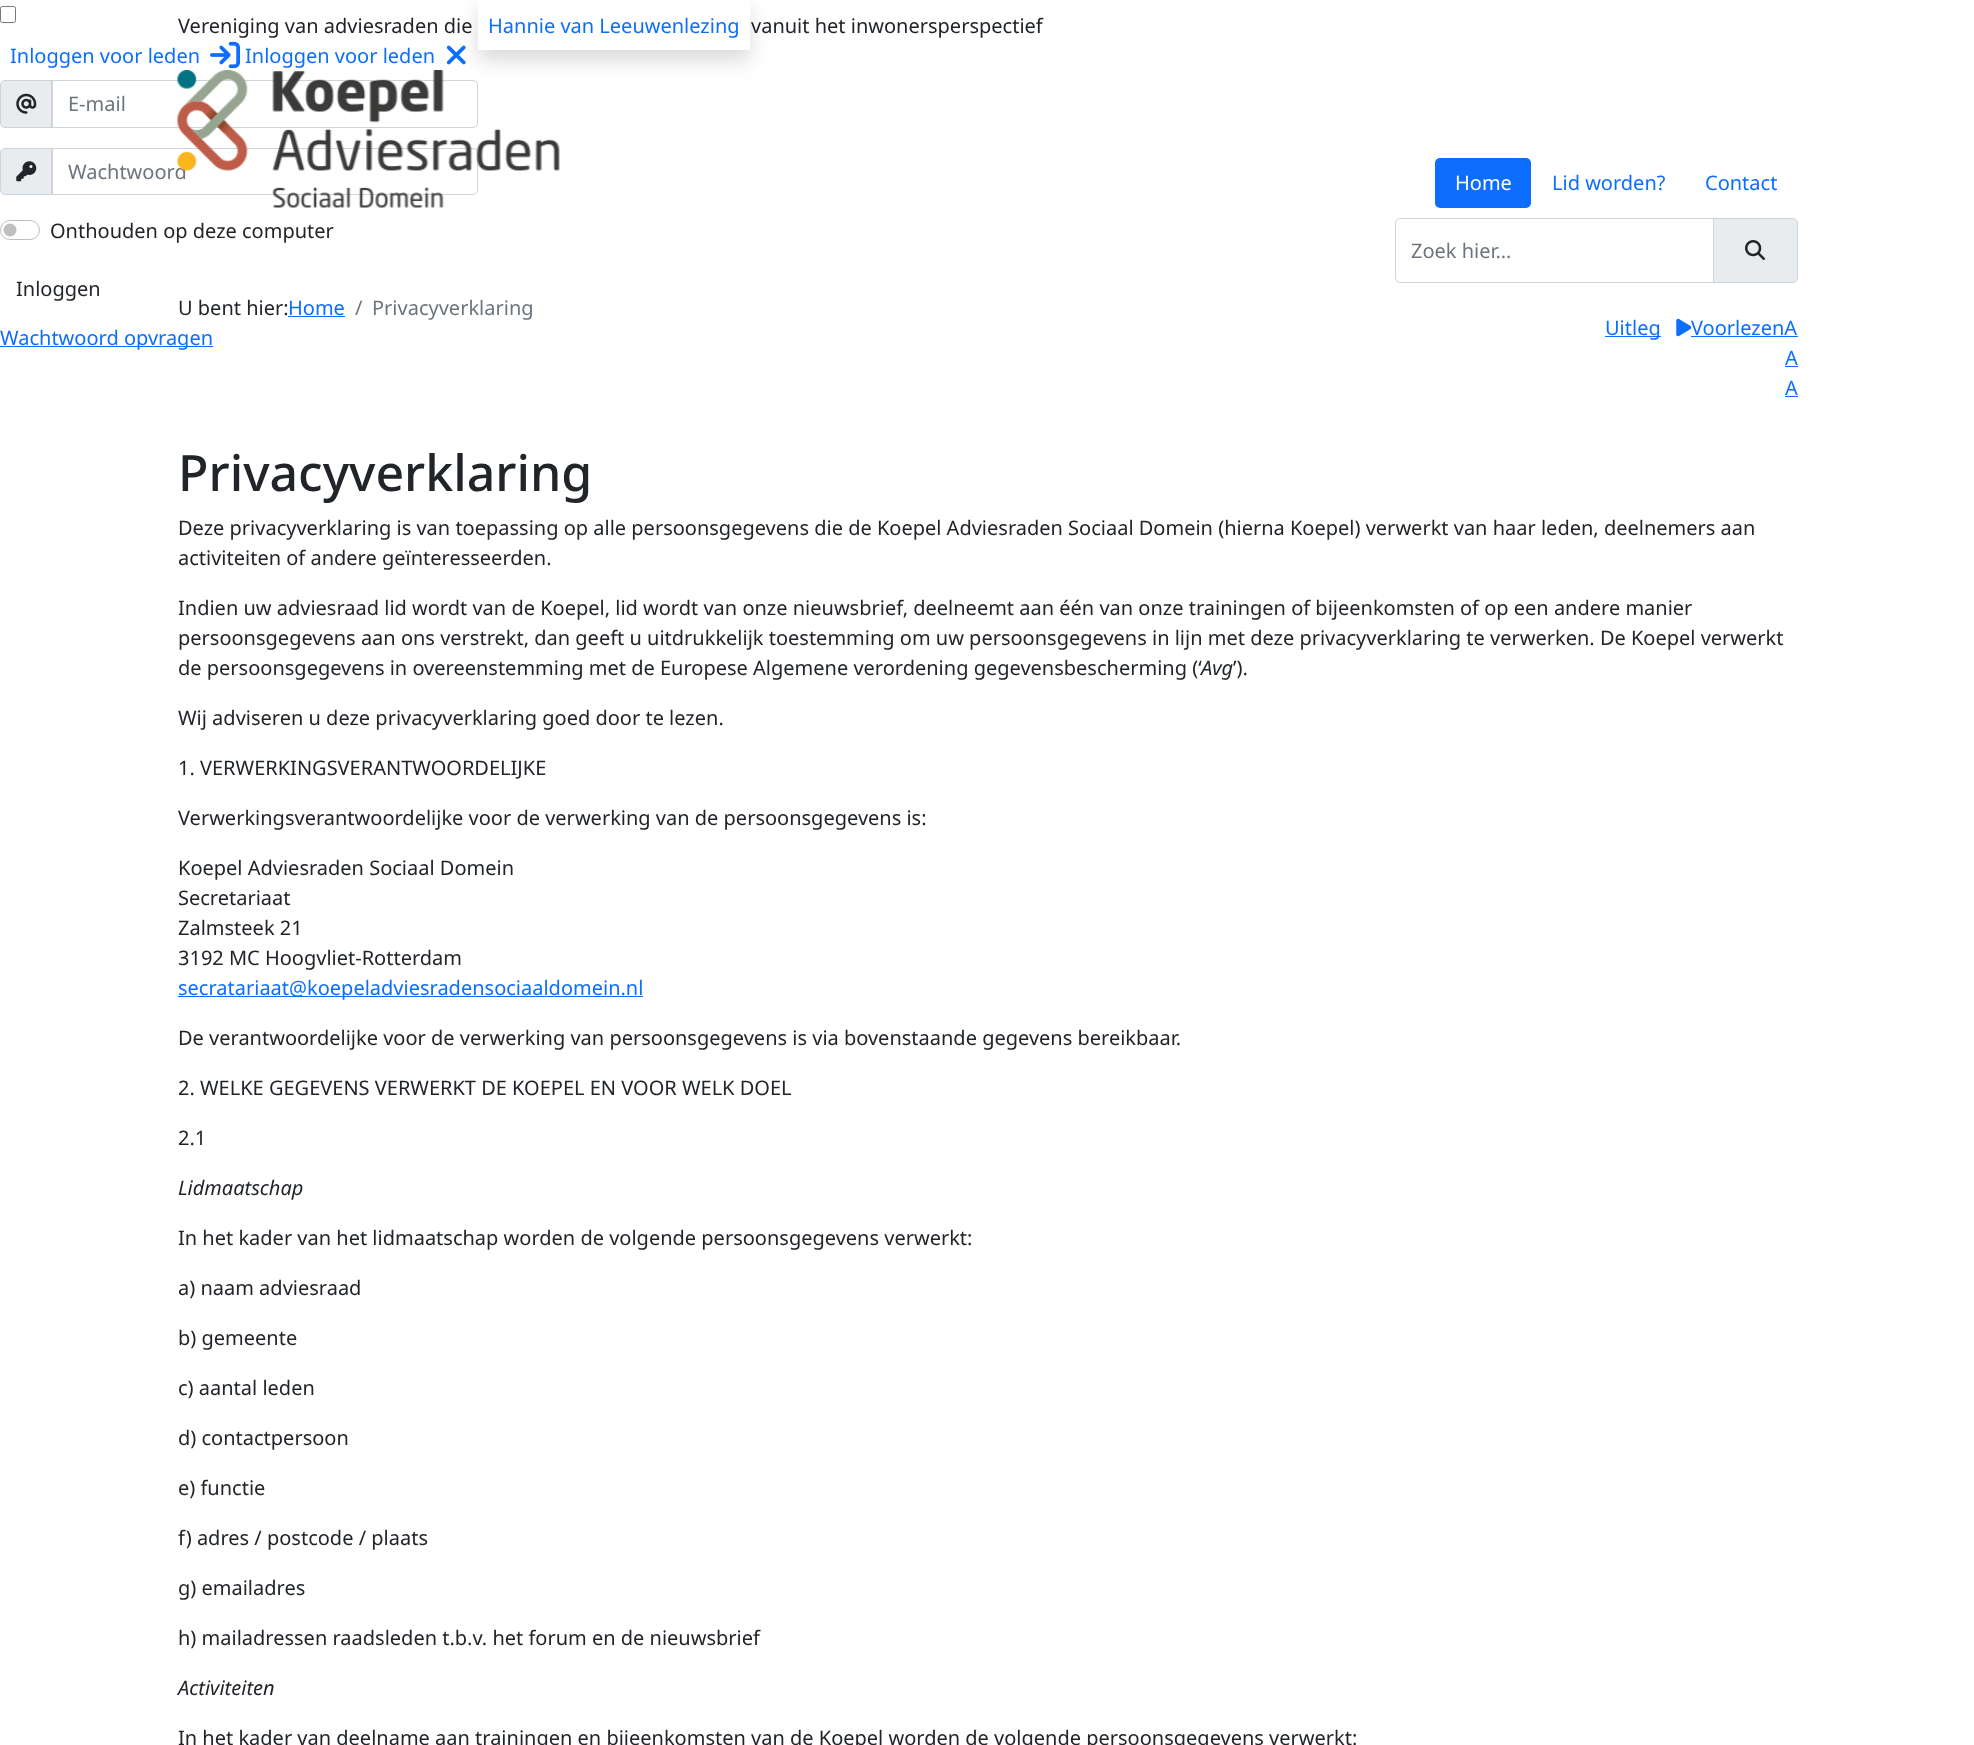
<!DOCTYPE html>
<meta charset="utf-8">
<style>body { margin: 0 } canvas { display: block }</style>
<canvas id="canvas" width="1974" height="1745"></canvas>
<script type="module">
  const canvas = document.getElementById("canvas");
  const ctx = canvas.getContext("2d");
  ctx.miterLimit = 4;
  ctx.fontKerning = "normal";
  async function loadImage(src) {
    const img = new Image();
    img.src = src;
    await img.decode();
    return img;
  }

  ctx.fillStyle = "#ffffff";
  ctx.fillRect(0, 0, 1974, 1745);
  ctx.fillStyle = "rgba(0, 0, 0, 0.15)";
  ctx.filter = "blur(10px)";
  ctx.beginPath();
  ctx.rect(478, 10, 272, 50);
  ctx.fill();
  ctx.filter = "none";
  ctx.fillStyle = "#ffffff";
  ctx.fillRect(478, 0, 272, 50);
  ctx.font = "20px Noto Sans";
  ctx.fillStyle = "#0d6efd";
  ctx.fillText("Hannie van Leeuwenlezing", 488, 33);
  ctx.beginPath();
  ctx.roundRect(0.5, 6.5, 15, 16, 2);
  ctx.strokeStyle = "#767676";
  ctx.stroke();
  ctx.fillText("Inloggen voor leden", 10, 63);
  ctx.drawImage(await loadImage("img1.png"), 210, 41, 30, 28);
  ctx.fillText("Inloggen voor leden", 245, 63);
  ctx.drawImage(await loadImage("img2.png"), 446, 45, 20, 20);
  ctx.fillStyle = "#e9ecef";
  ctx.beginPath();
  ctx.roundRect(0.5, 80.5, 52, 47, [4.5, 0, 0, 4.5]);
  ctx.fill();
  ctx.strokeStyle = "#ced4da";
  ctx.stroke();
  ctx.drawImage(await loadImage("img3.png"), 16, 93, 21, 21);
  ctx.beginPath();
  ctx.roundRect(51.5, 80.5, 426, 47, [0, 4.5, 4.5, 0]);
  ctx.stroke();
  ctx.fillStyle = "#6c757d";
  ctx.fillText("E-mail", 68, 111);
  ctx.fillStyle = "#e9ecef";
  ctx.beginPath();
  ctx.roundRect(0.5, 148.5, 52, 46, [4.5, 0, 0, 4.5]);
  ctx.fill();
  ctx.stroke();
  ctx.drawImage(await loadImage("img4.png"), 16, 161, 21, 21);
  ctx.beginPath();
  ctx.roundRect(51.5, 148.5, 426, 46, [0, 4.5, 4.5, 0]);
  ctx.stroke();
  ctx.fillStyle = "#6c757d";
  ctx.fillText("Wachtwoord", 68, 179);
  ctx.fillStyle = "#bfbfbf";
  ctx.beginPath();
  ctx.arc(10, 230, 6.5, 0, Math.PI * 2);
  ctx.fill();
  ctx.beginPath();
  ctx.roundRect(0.5, 220.5, 39, 19, 9.5);
  ctx.strokeStyle = "#bfbfbf";
  ctx.stroke();
  ctx.fillStyle = "#212529";
  ctx.fillText("Onthouden op deze computer", 50, 238);
  ctx.fillText("Inloggen", 16, 296);
  ctx.fillStyle = "#0d6efd";
  ctx.fillRect(0, 346, 213, 1);
  ctx.fillText("Wachtwoord opvragen", 0, 345);
  ctx.fillStyle = "#212529";
  ctx.fillText("Vereniging van adviesraden die", 178, 33);
  ctx.fillText("vanuit het inwonersperspectief", 751, 33);
  ctx.drawImage(await loadImage("img5.png"), 177, 70, 383, 138);
  ctx.fillStyle = "#0d6efd";
  ctx.beginPath();
  ctx.roundRect(1435, 158, 96, 50, 5);
  ctx.fill();
  ctx.fillStyle = "#ffffff";
  ctx.fillText("Home", 1455, 190);
  ctx.fillStyle = "#0d6efd";
  ctx.fillText("Lid worden?", 1552, 190);
  ctx.fillText("Contact", 1705, 190);
  ctx.fillStyle = "#e9ecef";
  ctx.beginPath();
  ctx.roundRect(1713.5, 218.5, 84, 64, [0, 4.5, 4.5, 0]);
  ctx.fill();
  ctx.strokeStyle = "#ced4da";
  ctx.stroke();
  ctx.beginPath();
  ctx.roundRect(1395.5, 218.5, 318, 64, [4.5, 0, 0, 4.5]);
  ctx.stroke();
  ctx.fillStyle = "#6c757d";
  ctx.fillText("Zoek hier…", 1411, 258);
  ctx.drawImage(await loadImage("img6.png"), 1745, 240, 20, 20);
  ctx.fillStyle = "#212529";
  ctx.fillText("U bent hier:", 178, 315);
  ctx.fillStyle = "#0d6efd";
  ctx.fillText("Home", 288, 315);
  ctx.fillRect(288, 316, 57, 1);
  ctx.fillStyle = "#6c757d";
  ctx.fillText("/", 355, 315);
  ctx.fillText("Privacyverklaring", 372, 315);
  ctx.fillStyle = "#0d6efd";
  ctx.fillRect(1605, 336, 56, 1);
  ctx.fillText("Uitleg", 1605, 335);
  ctx.fillText("VoorlezenA", 1691, 335);
  ctx.fillRect(1691, 336, 107, 1);
  ctx.drawImage(await loadImage("img7.png"), 1676, 318, 16, 19);
  ctx.fillText("A", 1785, 365);
  ctx.fillRect(1785, 366, 13, 1);
  ctx.fillText("A", 1785, 395);
  ctx.fillRect(1785, 396, 13, 1);
  ctx.font = "500 50px Noto Sans";
  ctx.fillStyle = "#212529";
  ctx.fillText("Privacyverklaring", 178, 491);
  ctx.font = "20px Noto Sans";
  ctx.fillText("Deze privacyverklaring is van toepassing op alle persoonsgegevens die de Koepel Adviesraden Sociaal Domein (hierna Koepel) verwerkt van haar leden, deelnemers aan", 178, 535);
  ctx.fillText("activiteiten of andere geïnteresseerden.", 178, 565);
  ctx.fillText("Indien uw adviesraad lid wordt van de Koepel, lid wordt van onze nieuwsbrief, deelneemt aan één van onze trainingen of bijeenkomsten of op een andere manier", 178, 615);
  ctx.fillText("persoonsgegevens aan ons verstrekt, dan geeft u uitdrukkelijk toestemming om uw persoonsgegevens in lijn met deze privacyverklaring te verwerken. De Koepel verwerkt", 178, 645);
  ctx.fillText("de persoonsgegevens in overeenstemming met de Europese Algemene verordening gegevensbescherming (‘", 178, 675);
  ctx.font = "italic 20px Noto Sans";
  ctx.fillText("Avg", 1201, 675);
  ctx.font = "20px Noto Sans";
  ctx.fillText("’).", 1233, 675);
  ctx.fillText("Wij adviseren u deze privacyverklaring goed door te lezen.", 178, 725);
  ctx.fillText("1. VERWERKINGSVERANTWOORDELIJKE", 178, 775);
  ctx.fillText("Verwerkingsverantwoordelijke voor de verwerking van de persoonsgegevens is:", 178, 825);
  ctx.fillText("Koepel Adviesraden Sociaal Domein", 178, 875);
  ctx.fillText("Secretariaat", 178, 905);
  ctx.fillText("Zalmsteek 21", 178, 935);
  ctx.fillText("3192 MC Hoogvliet-Rotterdam", 178, 965);
  ctx.fillStyle = "#0d6efd";
  ctx.fillRect(178, 996, 465, 1);
  ctx.fillText("secratariaat@koepeladviesradensociaaldomein.nl", 178, 995);
  ctx.fillStyle = "#212529";
  ctx.fillText("De verantwoordelijke voor de verwerking van persoonsgegevens is via bovenstaande gegevens bereikbaar.", 178, 1045);
  ctx.fillText("2. WELKE GEGEVENS VERWERKT DE KOEPEL EN VOOR WELK DOEL", 178, 1095);
  ctx.fillText("2.1", 178, 1145);
  ctx.font = "italic 20px Noto Sans";
  ctx.fillText("Lidmaatschap", 178, 1195);
  ctx.font = "20px Noto Sans";
  ctx.fillText("In het kader van het lidmaatschap worden de volgende persoonsgegevens verwerkt:", 178, 1245);
  ctx.fillText("a) naam adviesraad", 178, 1295);
  ctx.fillText("b) gemeente", 178, 1345);
  ctx.fillText("c) aantal leden", 178, 1395);
  ctx.fillText("d) contactpersoon", 178, 1445);
  ctx.fillText("e) functie", 178, 1495);
  ctx.fillText("f) adres / postcode / plaats", 178, 1545);
  ctx.fillText("g) emailadres", 178, 1595);
  ctx.fillText("h) mailadressen raadsleden t.b.v. het forum en de nieuwsbrief", 178, 1645);
  ctx.font = "italic 20px Noto Sans";
  ctx.fillText("Activiteiten", 178, 1695);
  ctx.font = "20px Noto Sans";
  ctx.fillText("In het kader van deelname aan trainingen en bijeenkomsten van de Koepel worden de volgende persoonsgegevens verwerkt:", 178, 1745);
</script>
